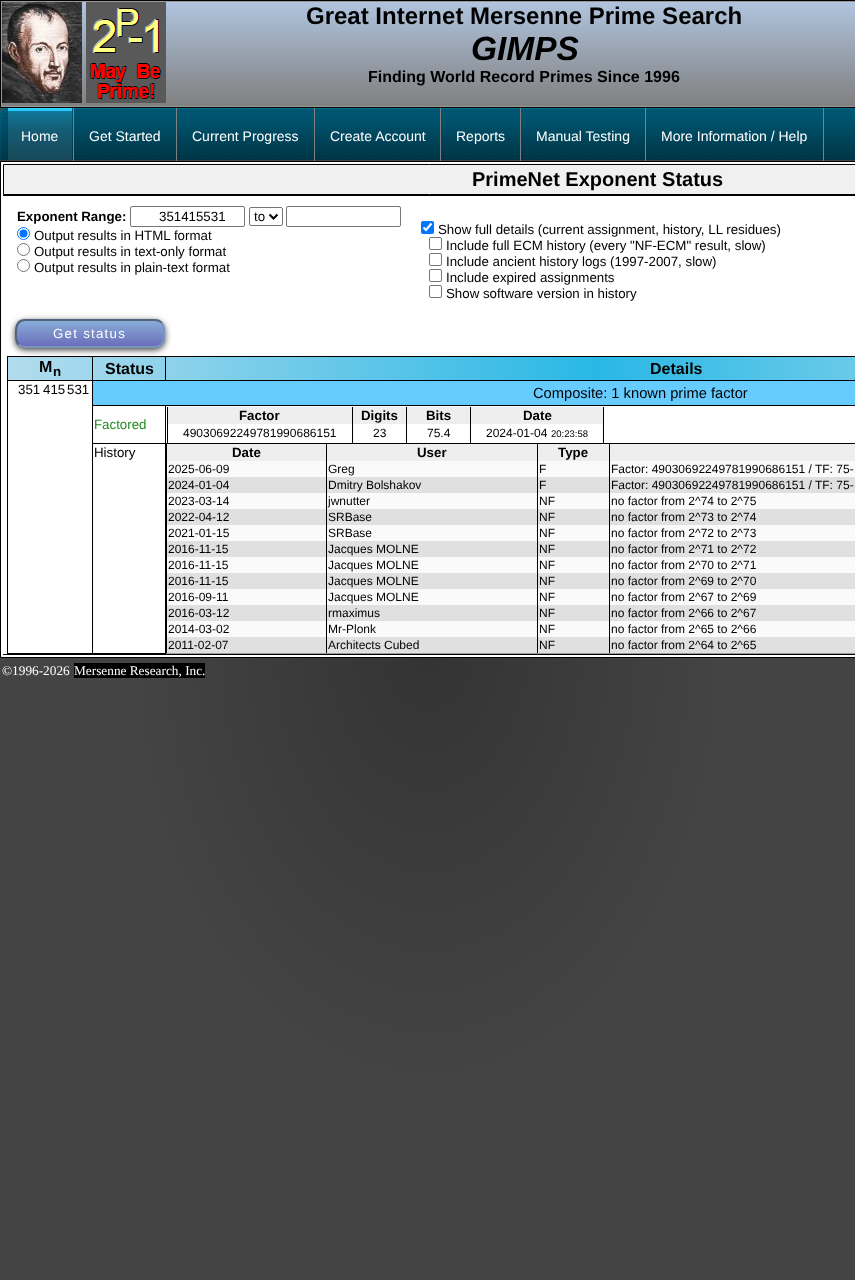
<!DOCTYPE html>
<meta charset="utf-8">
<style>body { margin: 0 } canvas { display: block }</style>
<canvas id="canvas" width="855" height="1280"></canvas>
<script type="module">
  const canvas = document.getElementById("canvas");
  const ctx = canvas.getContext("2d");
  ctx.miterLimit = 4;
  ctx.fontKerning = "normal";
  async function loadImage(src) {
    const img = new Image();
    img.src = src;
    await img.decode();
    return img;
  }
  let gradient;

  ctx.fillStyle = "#ffffff";
  ctx.fillRect(0, 0, 855, 1280);
  gradient = ctx.createRadialGradient(428, 427.85, 0, 428, 427.85, 605);
  gradient.addColorStop(0, "#333333");
  gradient.addColorStop(0.5, "#444444");
  gradient.addColorStop(1, "#444444");
  ctx.fillStyle = gradient;
  ctx.beginPath();
  ctx.rect(0, 108, 855, 1172);
  ctx.save();
  ctx.clip();
  ctx.scale(1, 905 / 605);
  ctx.fillRect(0, 0, 855, 856);
  ctx.restore();
  ctx.strokeStyle = "#000000";
  ctx.strokeRect(0.5, 0.5, 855, 107);
  gradient = ctx.createLinearGradient(601, 2, 601, 106);
  gradient.addColorStop(0, "#b0c4de");
  gradient.addColorStop(1, "#808080");
  ctx.fillStyle = gradient;
  ctx.fillRect(2, 2, 853, 104);
  ctx.strokeStyle = "#999999";
  ctx.strokeRect(1.5, 1.5, 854, 105);
  ctx.drawImage(await loadImage("img1.png"), 2, 2, 80, 101);
  ctx.drawImage(await loadImage("img2.png"), 86, 2, 80, 101);
  ctx.font = "bold 24px Liberation Sans";
  ctx.fillStyle = "#000000";
  ctx.fillText("Great Internet Mersenne Prime Search", 306, 24);
  ctx.font = "italic bold 33.5px Liberation Sans";
  ctx.fillText("GIMPS", 471, 60);
  ctx.font = "bold 16px Liberation Sans";
  ctx.fillText("Finding World Record Primes Since 1996", 368, 82);
  ctx.drawImage(await loadImage("img3.png"), 0, 108, 6, 52);
  ctx.drawImage(await loadImage("img4.png"), 74, 108, 781, 52);
  ctx.drawImage(await loadImage("img5.png"), 6, 108, 5, 52);
  ctx.drawImage(await loadImage("img6.png"), 11, 108, 62, 52);
  ctx.fillStyle = "#808080";
  ctx.fillRect(176, 108, 1, 53);
  ctx.font = "14px Liberation Sans";
  ctx.fillStyle = "#ffffff";
  ctx.fillText("Get Started", 89, 141);
  ctx.fillStyle = "#808080";
  ctx.fillRect(645, 108, 1, 53);
  ctx.fillStyle = "#ffffff";
  ctx.fillText("Manual Testing", 536, 141);
  ctx.fillStyle = "#808080";
  ctx.fillRect(823, 108, 1, 53);
  ctx.fillStyle = "#ffffff";
  ctx.fillText("More Information / Help", 661, 141);
  ctx.fillStyle = "#808080";
  ctx.fillRect(73, 108, 1, 53);
  ctx.fillStyle = "#ffffff";
  ctx.fillText("Home", 21, 141);
  ctx.fillStyle = "#808080";
  ctx.fillRect(314, 108, 1, 53);
  ctx.fillStyle = "#ffffff";
  ctx.fillText("Current Progress", 192, 141);
  ctx.fillStyle = "#808080";
  ctx.fillRect(440, 108, 1, 53);
  ctx.fillStyle = "#ffffff";
  ctx.fillText("Create Account", 330, 141);
  ctx.fillStyle = "#808080";
  ctx.fillRect(520, 108, 1, 53);
  ctx.fillStyle = "#ffffff";
  ctx.fillText("Reports", 456, 141);
  ctx.beginPath();
  ctx.rect(0.5, 161.5, 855, 496);
  ctx.fill();
  ctx.strokeStyle = "#000000";
  ctx.stroke();
  ctx.fillStyle = "#f0f0f0";
  ctx.beginPath();
  ctx.rect(3.5, 164.5, 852, 30);
  ctx.fill();
  ctx.stroke();
  ctx.font = "bold 20px Liberation Sans";
  ctx.fillStyle = "#000000";
  ctx.fillText("PrimeNet Exponent Status", 472, 186);
  ctx.fillRect(3, 195, 852, 1);
  ctx.fillRect(3, 654, 852, 1);
  ctx.font = "bold 13.3px Liberation Sans";
  ctx.fillText("Exponent Range:", 17, 221);
  ctx.beginPath();
  ctx.roundRect(130.5, 206.5, 114, 20, 1.5);
  ctx.strokeStyle = "#767676";
  ctx.stroke();
  ctx.font = "13.3px Liberation Sans";
  ctx.fillText("351415531", 159, 221);
  ctx.beginPath();
  ctx.roundRect(249.5, 207.5, 33, 18, 1.5);
  ctx.stroke();
  ctx.beginPath();
  ctx.moveTo(269.5, 214.5);
  ctx.lineTo(273.5, 218.5);
  ctx.lineTo(277.5, 214.5);
  ctx.strokeStyle = "#000000";
  ctx.lineWidth = 2;
  ctx.stroke();
  ctx.fillText("to", 254, 221);
  ctx.beginPath();
  ctx.roundRect(286.5, 206.5, 114, 20, 1.5);
  ctx.strokeStyle = "#767676";
  ctx.lineWidth = 1;
  ctx.stroke();
  ctx.beginPath();
  ctx.arc(23.5, 233.5, 6, 0, Math.PI * 2);
  ctx.strokeStyle = "#0075ff";
  ctx.stroke();
  ctx.fillStyle = "#0075ff";
  ctx.beginPath();
  ctx.arc(23.5, 233.5, 4, 0, Math.PI * 2);
  ctx.fill();
  ctx.fillStyle = "#000000";
  ctx.fillText("Output results in HTML format", 34, 240);
  ctx.beginPath();
  ctx.arc(23.5, 249.5, 6, 0, Math.PI * 2);
  ctx.strokeStyle = "#767676";
  ctx.stroke();
  ctx.fillText("Output results in text-only format", 34, 256);
  ctx.beginPath();
  ctx.arc(23.5, 265.5, 6, 0, Math.PI * 2);
  ctx.stroke();
  ctx.fillText("Output results in plain-text format", 34, 272);
  ctx.fillStyle = "#0075ff";
  ctx.beginPath();
  ctx.roundRect(421, 221, 13, 13, 2);
  ctx.fill();
  ctx.beginPath();
  ctx.moveTo(423.5, 227.5);
  ctx.lineTo(426, 230);
  ctx.lineTo(431.5, 223.5);
  ctx.strokeStyle = "#ffffff";
  ctx.lineWidth = 2.1;
  ctx.stroke();
  ctx.fillStyle = "#000000";
  ctx.fillText("Show full details (current assignment, history, LL residues)", 438, 234);
  ctx.beginPath();
  ctx.roundRect(429.5, 237.5, 12, 12, 1.5);
  ctx.strokeStyle = "#767676";
  ctx.lineWidth = 1;
  ctx.stroke();
  ctx.fillText("Include full ECM history (every \"NF-ECM\" result, slow)", 446, 250);
  ctx.beginPath();
  ctx.roundRect(429.5, 253.5, 12, 12, 1.5);
  ctx.stroke();
  ctx.fillText("Include ancient history logs (1997-2007, slow)", 446, 266);
  ctx.beginPath();
  ctx.roundRect(429.5, 269.5, 12, 12, 1.5);
  ctx.stroke();
  ctx.fillText("Include expired assignments", 446, 282);
  ctx.beginPath();
  ctx.roundRect(429.5, 285.5, 12, 12, 1.5);
  ctx.stroke();
  ctx.fillText("Show software version in history", 446, 298);
  gradient = ctx.createLinearGradient(8, 369, 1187, 369);
  gradient.addColorStop(0, "#b3dced");
  gradient.addColorStop(0.5, "#29b8e5");
  gradient.addColorStop(1, "#bce0ee");
  ctx.fillStyle = gradient;
  ctx.fillRect(8, 357, 847, 23);
  ctx.fillStyle = "#000000";
  ctx.fillRect(165, 356, 690, 1);
  ctx.fillRect(92, 380, 763, 1);
  ctx.fillRect(165, 356, 1, 25);
  ctx.fillRect(92, 356, 74, 1);
  ctx.fillRect(165, 405, 690, 1);
  ctx.fillRect(92, 443, 74, 1);
  ctx.fillRect(166, 444, 1, 210);
  ctx.fillStyle = "#eeeeee";
  ctx.fillRect(167, 444, 688, 17);
  ctx.fillStyle = "#fafafa";
  ctx.fillRect(167, 461, 688, 16);
  ctx.fillStyle = "#e0e0e0";
  ctx.fillRect(167, 477, 688, 16);
  ctx.fillStyle = "#fafafa";
  ctx.fillRect(167, 493, 688, 16);
  ctx.fillStyle = "#e0e0e0";
  ctx.fillRect(167, 509, 688, 16);
  ctx.fillStyle = "#fafafa";
  ctx.fillRect(167, 525, 688, 16);
  ctx.fillStyle = "#e0e0e0";
  ctx.fillRect(167, 541, 688, 16);
  ctx.fillStyle = "#fafafa";
  ctx.fillRect(167, 557, 688, 16);
  ctx.fillStyle = "#e0e0e0";
  ctx.fillRect(167, 573, 688, 16);
  ctx.fillStyle = "#fafafa";
  ctx.fillRect(167, 589, 688, 16);
  ctx.fillStyle = "#e0e0e0";
  ctx.fillRect(167, 605, 688, 16);
  ctx.fillStyle = "#fafafa";
  ctx.fillRect(167, 621, 688, 16);
  ctx.fillStyle = "#e0e0e0";
  ctx.fillRect(167, 637, 688, 16);
  ctx.fillStyle = "#000000";
  ctx.fillRect(326, 444, 1, 210);
  ctx.fillRect(537, 444, 1, 210);
  ctx.fillRect(609, 444, 1, 210);
  ctx.fillStyle = "#999999";
  ctx.fillRect(165, 653, 690, 1);
  ctx.fillStyle = "#000000";
  ctx.fillRect(165, 443, 1, 211);
  ctx.fillRect(165, 443, 690, 1);
  ctx.fillRect(165, 405, 1, 39);
  ctx.fillRect(92, 405, 74, 1);
  ctx.fillRect(92, 653, 74, 1);
  ctx.fillRect(92, 443, 1, 211);
  ctx.fillRect(92, 405, 1, 39);
  ctx.fillRect(92, 380, 1, 26);
  ctx.fillRect(7, 380, 86, 1);
  ctx.fillRect(92, 356, 1, 25);
  ctx.fillRect(7, 356, 86, 1);
  ctx.fillRect(7, 653, 86, 1);
  ctx.fillRect(7, 380, 1, 274);
  ctx.fillRect(7, 356, 1, 25);
  ctx.fillStyle = "rgba(0, 0, 0, 0.75)";
  ctx.filter = "blur(3px)";
  ctx.beginPath();
  ctx.roundRect(15, 321, 150, 29, 10);
  ctx.fill();
  ctx.filter = "none";
  ctx.save();
  ctx.beginPath();
  ctx.roundRect(15, 319, 150, 29, 10);
  ctx.clip();
  gradient = ctx.createLinearGradient(90, 321, 90, 346);
  gradient.addColorStop(0, "#88add7");
  gradient.addColorStop(1, "#6b6dbb");
  ctx.fillStyle = gradient;
  ctx.fillRect(15, 321, 150, 25);
  ctx.restore();
  ctx.beginPath();
  ctx.moveTo(161.5, 322.5);
  ctx.bezierCurveTo(164.5, 326, 164, 330.5, 164, 335);
  ctx.bezierCurveTo(164, 341, 162.5, 347, 155, 347);
  ctx.lineTo(25, 347);
  ctx.lineTo(21.5, 346.5);
  ctx.lineTo(18.5, 344.5);
  ctx.strokeStyle = "#7c93ba";
  ctx.lineWidth = 2;
  ctx.stroke();
  ctx.beginPath();
  ctx.moveTo(18.5, 344.5);
  ctx.bezierCurveTo(15.5, 341, 16, 336.5, 16, 332);
  ctx.bezierCurveTo(16, 326, 17.5, 320, 25, 320);
  ctx.lineTo(155, 320);
  ctx.lineTo(158.5, 320.5);
  ctx.lineTo(161.5, 322.5);
  ctx.strokeStyle = "#53627c";
  ctx.stroke();
  ctx.letterSpacing = "1.25px";
  ctx.fillStyle = "#ffffff";
  ctx.fillText("Get status", 53, 338);
  ctx.letterSpacing = "0px";
  ctx.font = "bold 16px Liberation Sans";
  ctx.fillStyle = "#000000";
  ctx.fillText("M", 39, 372);
  ctx.font = "bold 13.3px Liberation Sans";
  ctx.fillText("n", 53, 376);
  ctx.font = "bold 16px Liberation Sans";
  ctx.fillText("Status", 105, 374);
  ctx.fillText("Details", 650, 374);
  ctx.font = "13.3px Liberation Sans";
  ctx.fillText("351", 18, 394);
  ctx.fillText("415", 43, 394);
  ctx.fillText("531", 67, 394);
  ctx.fillStyle = "#66ccff";
  ctx.fillRect(93, 381, 762, 24);
  ctx.font = "14.7px Liberation Sans";
  ctx.fillStyle = "#000000";
  ctx.fillText("Composite: 1 known prime factor", 533, 398);
  ctx.font = "13.3px Liberation Sans";
  ctx.fillStyle = "#228b22";
  ctx.fillText("Factored", 94, 429);
  ctx.fillStyle = "#eeeeee";
  ctx.fillRect(168, 407, 435, 17);
  ctx.font = "bold 13.3px Liberation Sans";
  ctx.fillStyle = "#000000";
  ctx.fillText("Factor", 239, 420);
  ctx.fillText("Digits", 361, 420);
  ctx.fillText("Bits", 426, 420);
  ctx.fillText("Date", 523, 420);
  ctx.fillRect(167, 407, 1, 36);
  ctx.font = "12px Liberation Sans";
  ctx.fillText("49030692249781990686151", 183, 437);
  ctx.fillRect(352, 407, 1, 36);
  ctx.fillText("23", 373, 437);
  ctx.fillRect(406, 407, 1, 36);
  ctx.fillText("75.4", 427, 437);
  ctx.fillRect(603, 407, 1, 36);
  ctx.fillRect(470, 407, 1, 36);
  ctx.fillText("2024-01-04", 486, 437);
  ctx.font = "9.5px Liberation Sans";
  ctx.fillText("20:23:58", 551, 437);
  ctx.font = "13.3px Liberation Sans";
  ctx.fillText("History", 94, 457);
  ctx.font = "bold 13.3px Liberation Sans";
  ctx.fillText("Date", 232, 457);
  ctx.fillText("User", 417, 457);
  ctx.fillText("Type", 558, 457);
  ctx.font = "12px Liberation Sans";
  ctx.fillText("2025-06-09", 168, 473);
  ctx.fillText("Greg", 328, 473);
  ctx.fillText("F", 539, 473);
  ctx.fillText("Factor: 49030692249781990686151 / TF: 75-", 611, 473);
  ctx.fillText("2024-01-04", 168, 489);
  ctx.fillText("Dmitry Bolshakov", 328, 489);
  ctx.fillText("F", 539, 489);
  ctx.fillText("Factor: 49030692249781990686151 / TF: 75-", 611, 489);
  ctx.fillText("2023-03-14", 168, 505);
  ctx.fillText("jwnutter", 328, 505);
  ctx.fillText("NF", 539, 505);
  ctx.fillText("no factor from 2^74 to 2^75", 611, 505);
  ctx.fillText("2022-04-12", 168, 521);
  ctx.fillText("SRBase", 328, 521);
  ctx.fillText("NF", 539, 521);
  ctx.fillText("no factor from 2^73 to 2^74", 611, 521);
  ctx.fillText("2021-01-15", 168, 537);
  ctx.fillText("SRBase", 328, 537);
  ctx.fillText("NF", 539, 537);
  ctx.fillText("no factor from 2^72 to 2^73", 611, 537);
  ctx.fillText("2016-11-15", 168, 553);
  ctx.fillText("Jacques MOLNE", 328, 553);
  ctx.fillText("NF", 539, 553);
  ctx.fillText("no factor from 2^71 to 2^72", 611, 553);
  ctx.fillText("2016-11-15", 168, 569);
  ctx.fillText("Jacques MOLNE", 328, 569);
  ctx.fillText("NF", 539, 569);
  ctx.fillText("no factor from 2^70 to 2^71", 611, 569);
  ctx.fillText("2016-11-15", 168, 585);
  ctx.fillText("Jacques MOLNE", 328, 585);
  ctx.fillText("NF", 539, 585);
  ctx.fillText("no factor from 2^69 to 2^70", 611, 585);
  ctx.fillText("2016-09-11", 168, 601);
  ctx.fillText("Jacques MOLNE", 328, 601);
  ctx.fillText("NF", 539, 601);
  ctx.fillText("no factor from 2^67 to 2^69", 611, 601);
  ctx.fillText("2016-03-12", 168, 617);
  ctx.fillText("rmaximus", 328, 617);
  ctx.fillText("NF", 539, 617);
  ctx.fillText("no factor from 2^66 to 2^67", 611, 617);
  ctx.fillText("2014-03-02", 168, 633);
  ctx.fillText("Mr-Plonk", 328, 633);
  ctx.fillText("NF", 539, 633);
  ctx.fillText("no factor from 2^65 to 2^66", 611, 633);
  ctx.fillText("2011-02-07", 168, 649);
  ctx.fillText("Architects Cubed", 328, 649);
  ctx.fillText("NF", 539, 649);
  ctx.fillText("no factor from 2^64 to 2^65", 611, 649);
  ctx.font = "13.3px Liberation Serif";
  ctx.fillStyle = "#ffffff";
  ctx.fillText("©1996-2026", 2, 675);
  ctx.fillStyle = "#000000";
  ctx.fillRect(74, 663, 131, 15);
  ctx.fillStyle = "#ffffff";
  ctx.fillText("Mersenne Research, Inc.", 74, 675);
</script>
